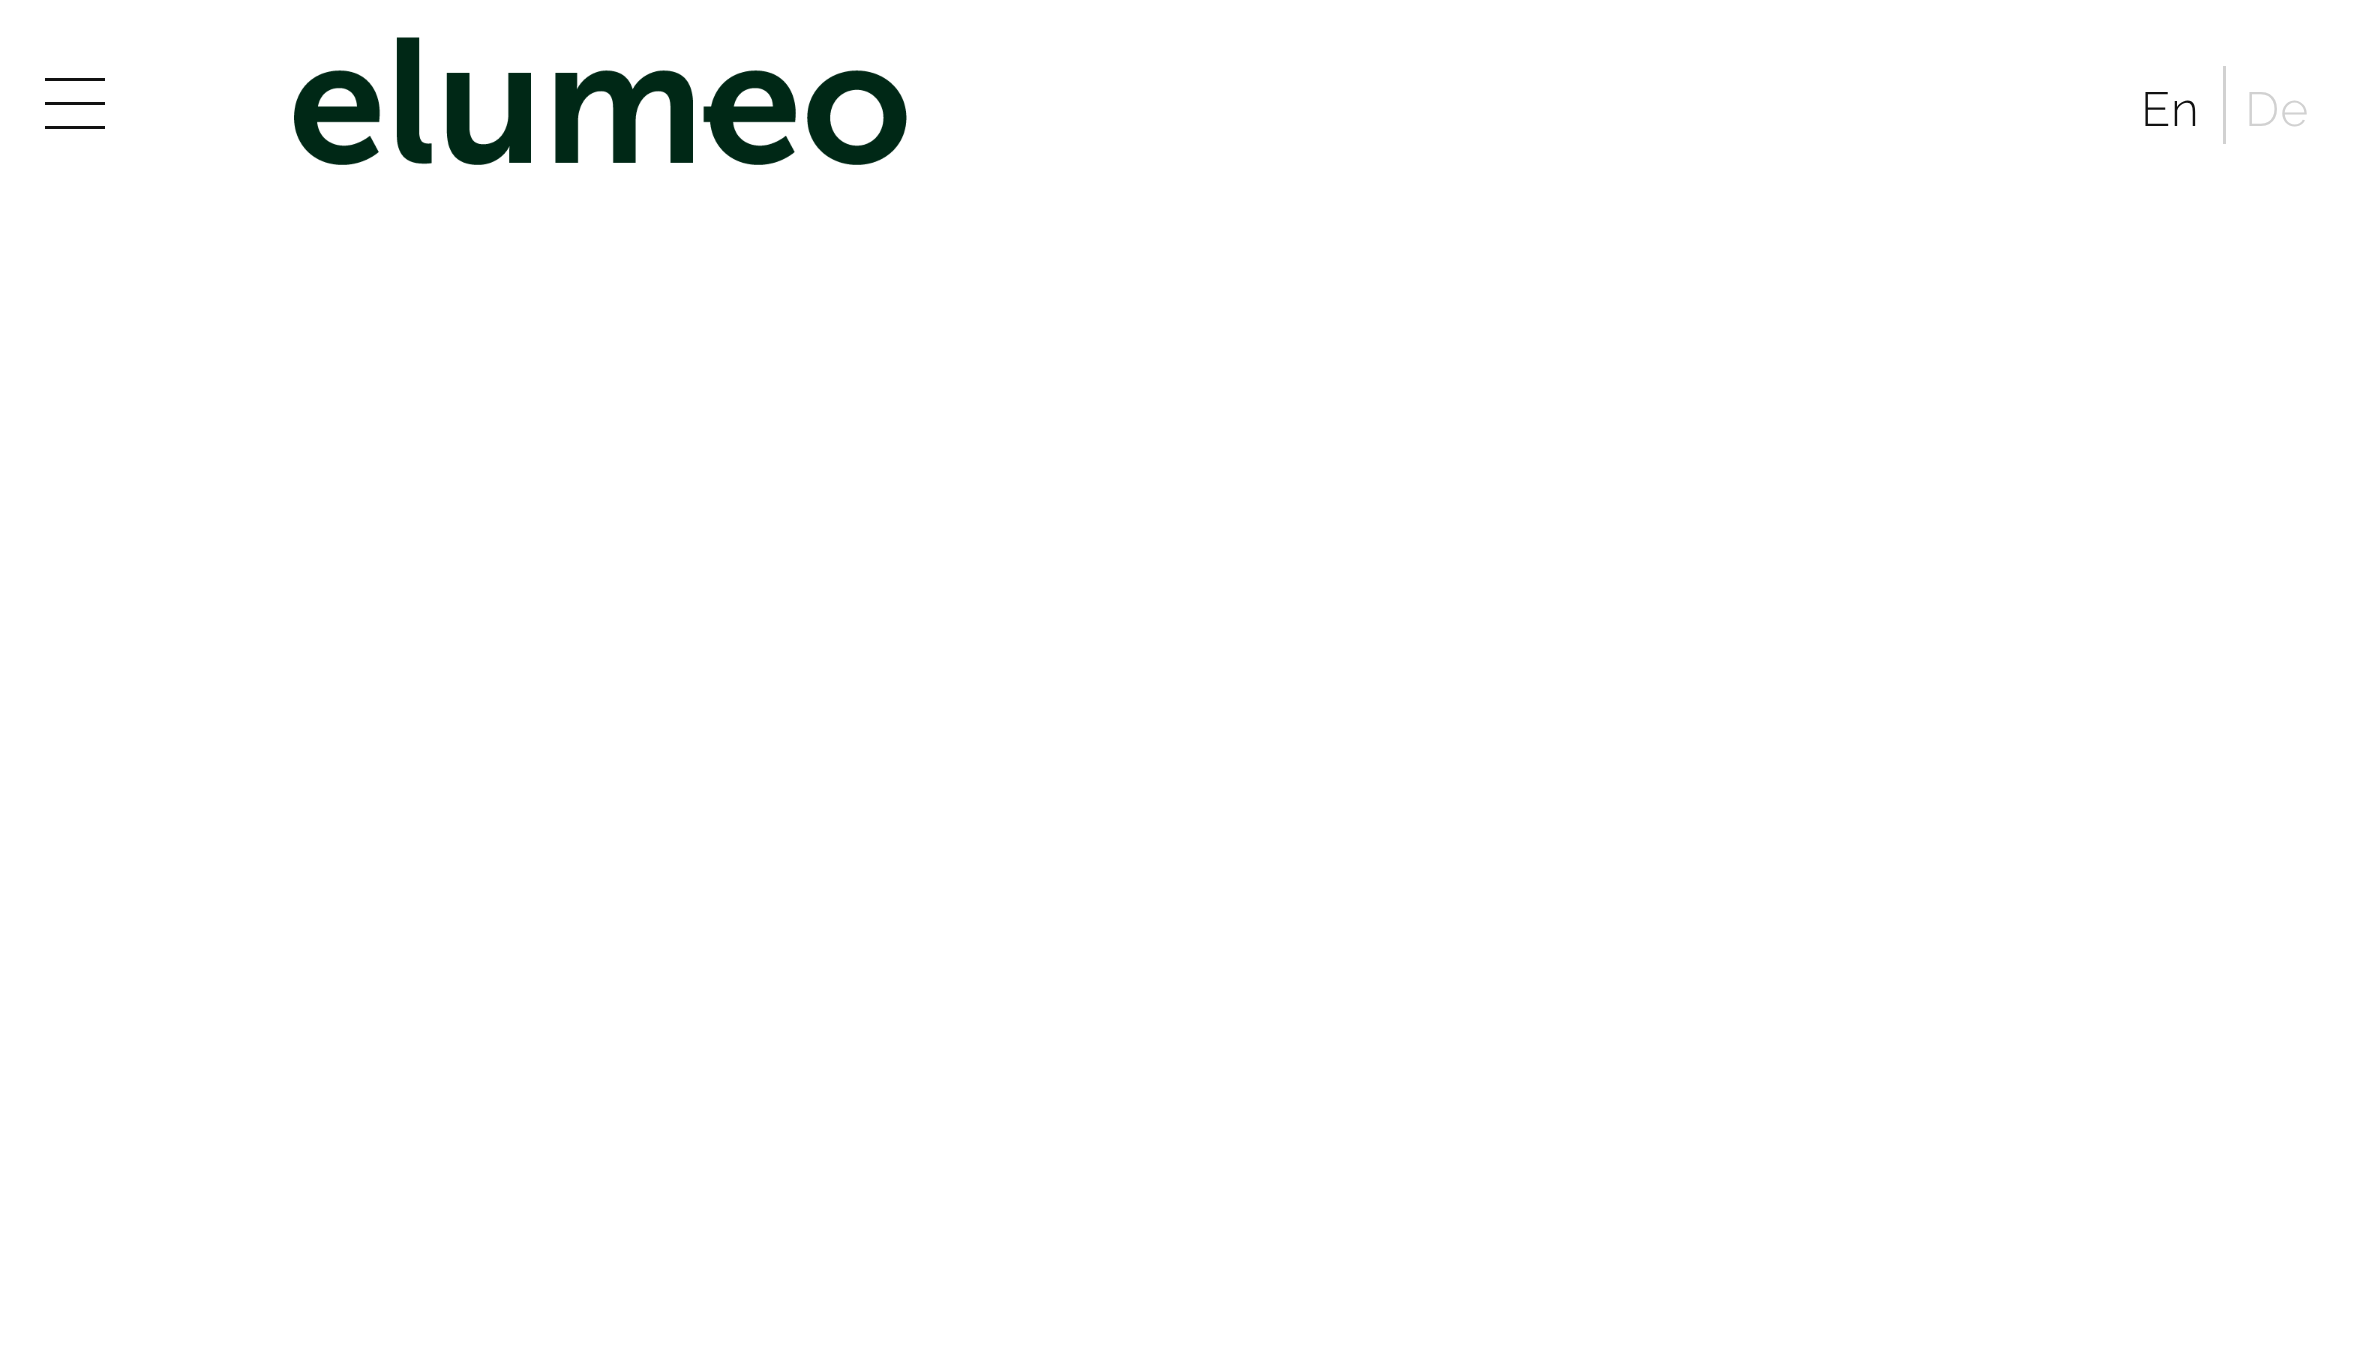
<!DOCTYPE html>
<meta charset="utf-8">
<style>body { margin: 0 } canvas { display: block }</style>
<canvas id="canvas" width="2356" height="1347"></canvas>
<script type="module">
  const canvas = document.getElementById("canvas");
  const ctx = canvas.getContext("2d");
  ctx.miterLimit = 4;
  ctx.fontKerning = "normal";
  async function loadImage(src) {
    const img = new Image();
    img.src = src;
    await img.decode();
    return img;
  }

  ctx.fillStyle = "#ffffff";
  ctx.fillRect(0, 0, 2356, 1347);
  ctx.fillStyle = "#111111";
  ctx.fillRect(45, 78, 60, 3);
  ctx.fillRect(45, 102, 60, 3);
  ctx.fillRect(45, 126, 60, 3);
  ctx.drawImage(await loadImage("img1.png"), 294, 37, 613, 128);
  ctx.letterSpacing = "1px";
  ctx.font = "100 48px Raleway";
  ctx.fillText("En", 2141, 126);
  ctx.fillStyle = "#d1d1d1";
  ctx.fillRect(2223, 66, 3, 78);
  ctx.fillText("De", 2245, 126);
</script>
